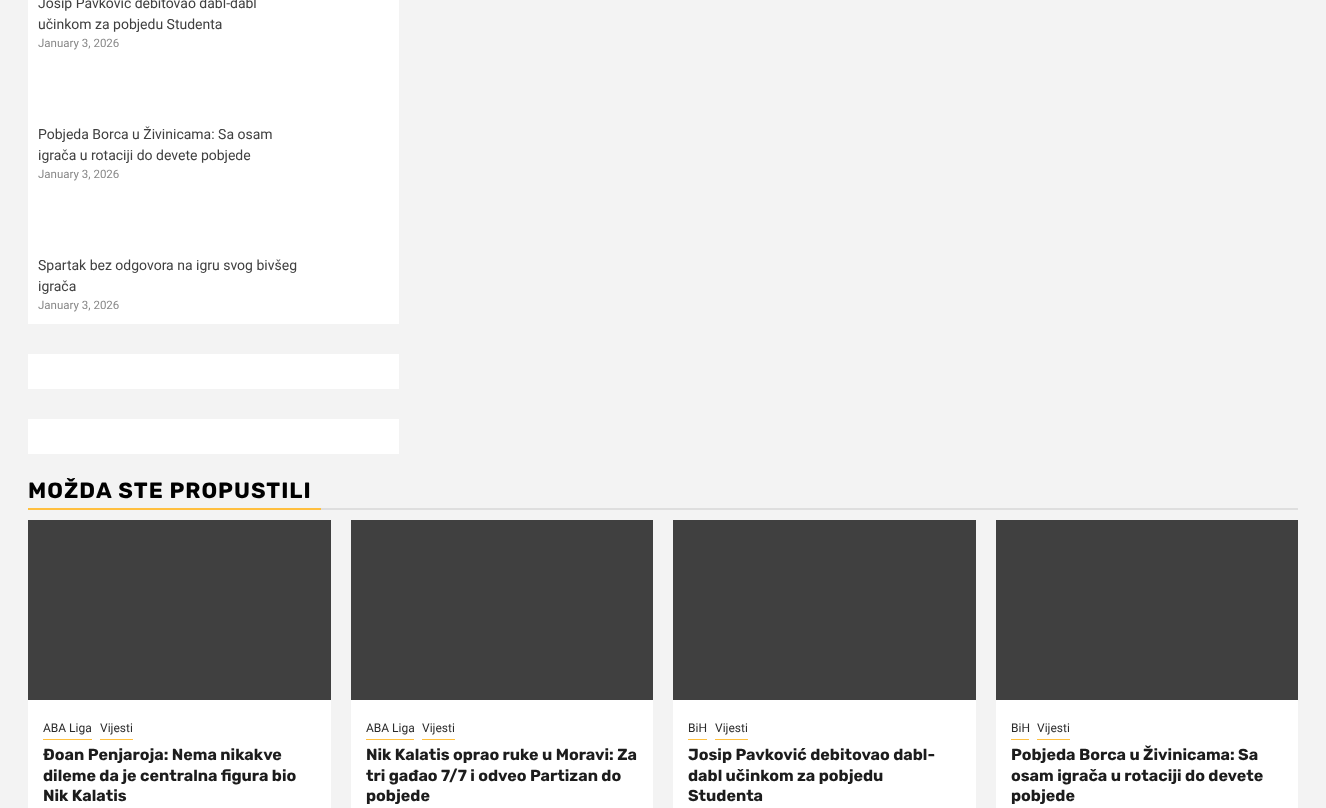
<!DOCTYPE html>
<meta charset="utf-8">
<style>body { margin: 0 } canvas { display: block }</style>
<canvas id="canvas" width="1326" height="808"></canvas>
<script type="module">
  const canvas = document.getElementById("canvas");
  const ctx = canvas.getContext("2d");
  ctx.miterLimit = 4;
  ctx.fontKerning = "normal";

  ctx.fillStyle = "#f3f3f3";
  ctx.fillRect(0, 0, 1326, 808);
  ctx.fillStyle = "#ffffff";
  ctx.fillRect(28, 0, 371, 324);
  ctx.font = "14px Roboto";
  ctx.fillStyle = "#404040";
  ctx.fillText("Josip Pavković debitovao dabl-dabl", 38, 8);
  ctx.fillText("učinkom za pobjedu Studenta", 38, 29);
  ctx.font = "11.5px Roboto";
  ctx.fillStyle = "#888888";
  ctx.fillText("January 3, 2026", 38, 47);
  ctx.font = "14px Roboto";
  ctx.fillStyle = "#404040";
  ctx.fillText("Pobjeda Borca u Živinicama: Sa osam", 38, 139);
  ctx.fillText("igrača u rotaciji do devete pobjede", 38, 160);
  ctx.font = "11.5px Roboto";
  ctx.fillStyle = "#888888";
  ctx.fillText("January 3, 2026", 38, 178);
  ctx.font = "14px Roboto";
  ctx.fillStyle = "#404040";
  ctx.fillText("Spartak bez odgovora na igru svog bivšeg", 38, 270);
  ctx.fillText("igrača", 38, 291);
  ctx.font = "11.5px Roboto";
  ctx.fillStyle = "#888888";
  ctx.fillText("January 3, 2026", 38, 309);
  ctx.fillStyle = "#ffffff";
  ctx.fillRect(28, 354, 371, 35);
  ctx.fillRect(28, 419, 371, 35);
  ctx.fillStyle = "#ffbf3f";
  ctx.fillRect(28, 508, 293, 2);
  ctx.letterSpacing = "1px";
  ctx.font = "bold 22px Rubik";
  ctx.fillStyle = "#000000";
  ctx.fillText("MOŽDA STE PROPUSTILI", 28, 498);
  ctx.fillStyle = "#dedede";
  ctx.fillRect(321, 508, 977, 2);
  ctx.fillStyle = "#ffffff";
  ctx.fillRect(28, 700, 303, 108);
  ctx.fillStyle = "#404040";
  ctx.fillRect(28, 520, 303, 180);
  ctx.fillStyle = "#ffbf3f";
  ctx.fillRect(43, 739, 49, 1);
  ctx.letterSpacing = "0px";
  ctx.font = "12px Roboto";
  ctx.fillStyle = "#2b2b2b";
  ctx.fillText("ABA Liga", 43, 732);
  ctx.fillStyle = "#ffbf3f";
  ctx.fillRect(100, 739, 33, 1);
  ctx.fillStyle = "#2b2b2b";
  ctx.fillText("Vijesti", 100, 732);
  ctx.font = "bold 16px Rubik";
  ctx.fillStyle = "#1c1c1c";
  ctx.fillText("Đoan Penjaroja: Nema nikakve", 43, 760);
  ctx.fillText("dileme da je centralna figura bio", 43, 781);
  ctx.fillText("Nik Kalatis", 43, 801);
  ctx.fillStyle = "#ffffff";
  ctx.fillRect(351, 700, 302, 108);
  ctx.fillStyle = "#404040";
  ctx.fillRect(351, 520, 302, 180);
  ctx.fillStyle = "#ffbf3f";
  ctx.fillRect(366, 739, 48, 1);
  ctx.font = "12px Roboto";
  ctx.fillStyle = "#2b2b2b";
  ctx.fillText("ABA Liga", 366, 732);
  ctx.fillStyle = "#ffbf3f";
  ctx.fillRect(422, 739, 33, 1);
  ctx.fillStyle = "#2b2b2b";
  ctx.fillText("Vijesti", 422, 732);
  ctx.font = "bold 16px Rubik";
  ctx.fillStyle = "#1c1c1c";
  ctx.fillText("Nik Kalatis oprao ruke u Moravi: Za", 366, 760);
  ctx.fillText("tri gađao 7/7 i odveo Partizan do", 366, 781);
  ctx.fillText("pobjede", 366, 801);
  ctx.fillStyle = "#ffffff";
  ctx.fillRect(673, 700, 303, 108);
  ctx.fillStyle = "#404040";
  ctx.fillRect(673, 520, 303, 180);
  ctx.fillStyle = "#ffbf3f";
  ctx.fillRect(688, 739, 19, 1);
  ctx.font = "12px Roboto";
  ctx.fillStyle = "#2b2b2b";
  ctx.fillText("BiH", 688, 732);
  ctx.fillStyle = "#ffbf3f";
  ctx.fillRect(715, 739, 33, 1);
  ctx.fillStyle = "#2b2b2b";
  ctx.fillText("Vijesti", 715, 732);
  ctx.font = "bold 16px Rubik";
  ctx.fillStyle = "#1c1c1c";
  ctx.fillText("Josip Pavković debitovao dabl-", 688, 760);
  ctx.fillText("dabl učinkom za pobjedu", 688, 781);
  ctx.fillText("Studenta", 688, 801);
  ctx.fillStyle = "#ffffff";
  ctx.fillRect(996, 700, 302, 108);
  ctx.fillStyle = "#404040";
  ctx.fillRect(996, 520, 302, 180);
  ctx.fillStyle = "#ffbf3f";
  ctx.fillRect(1011, 739, 18, 1);
  ctx.font = "12px Roboto";
  ctx.fillStyle = "#2b2b2b";
  ctx.fillText("BiH", 1011, 732);
  ctx.fillStyle = "#ffbf3f";
  ctx.fillRect(1037, 739, 33, 1);
  ctx.fillStyle = "#2b2b2b";
  ctx.fillText("Vijesti", 1037, 732);
  ctx.font = "bold 16px Rubik";
  ctx.fillStyle = "#1c1c1c";
  ctx.fillText("Pobjeda Borca u Živinicama: Sa", 1011, 760);
  ctx.fillText("osam igrača u rotaciji do devete", 1011, 781);
  ctx.fillText("pobjede", 1011, 801);
</script>
